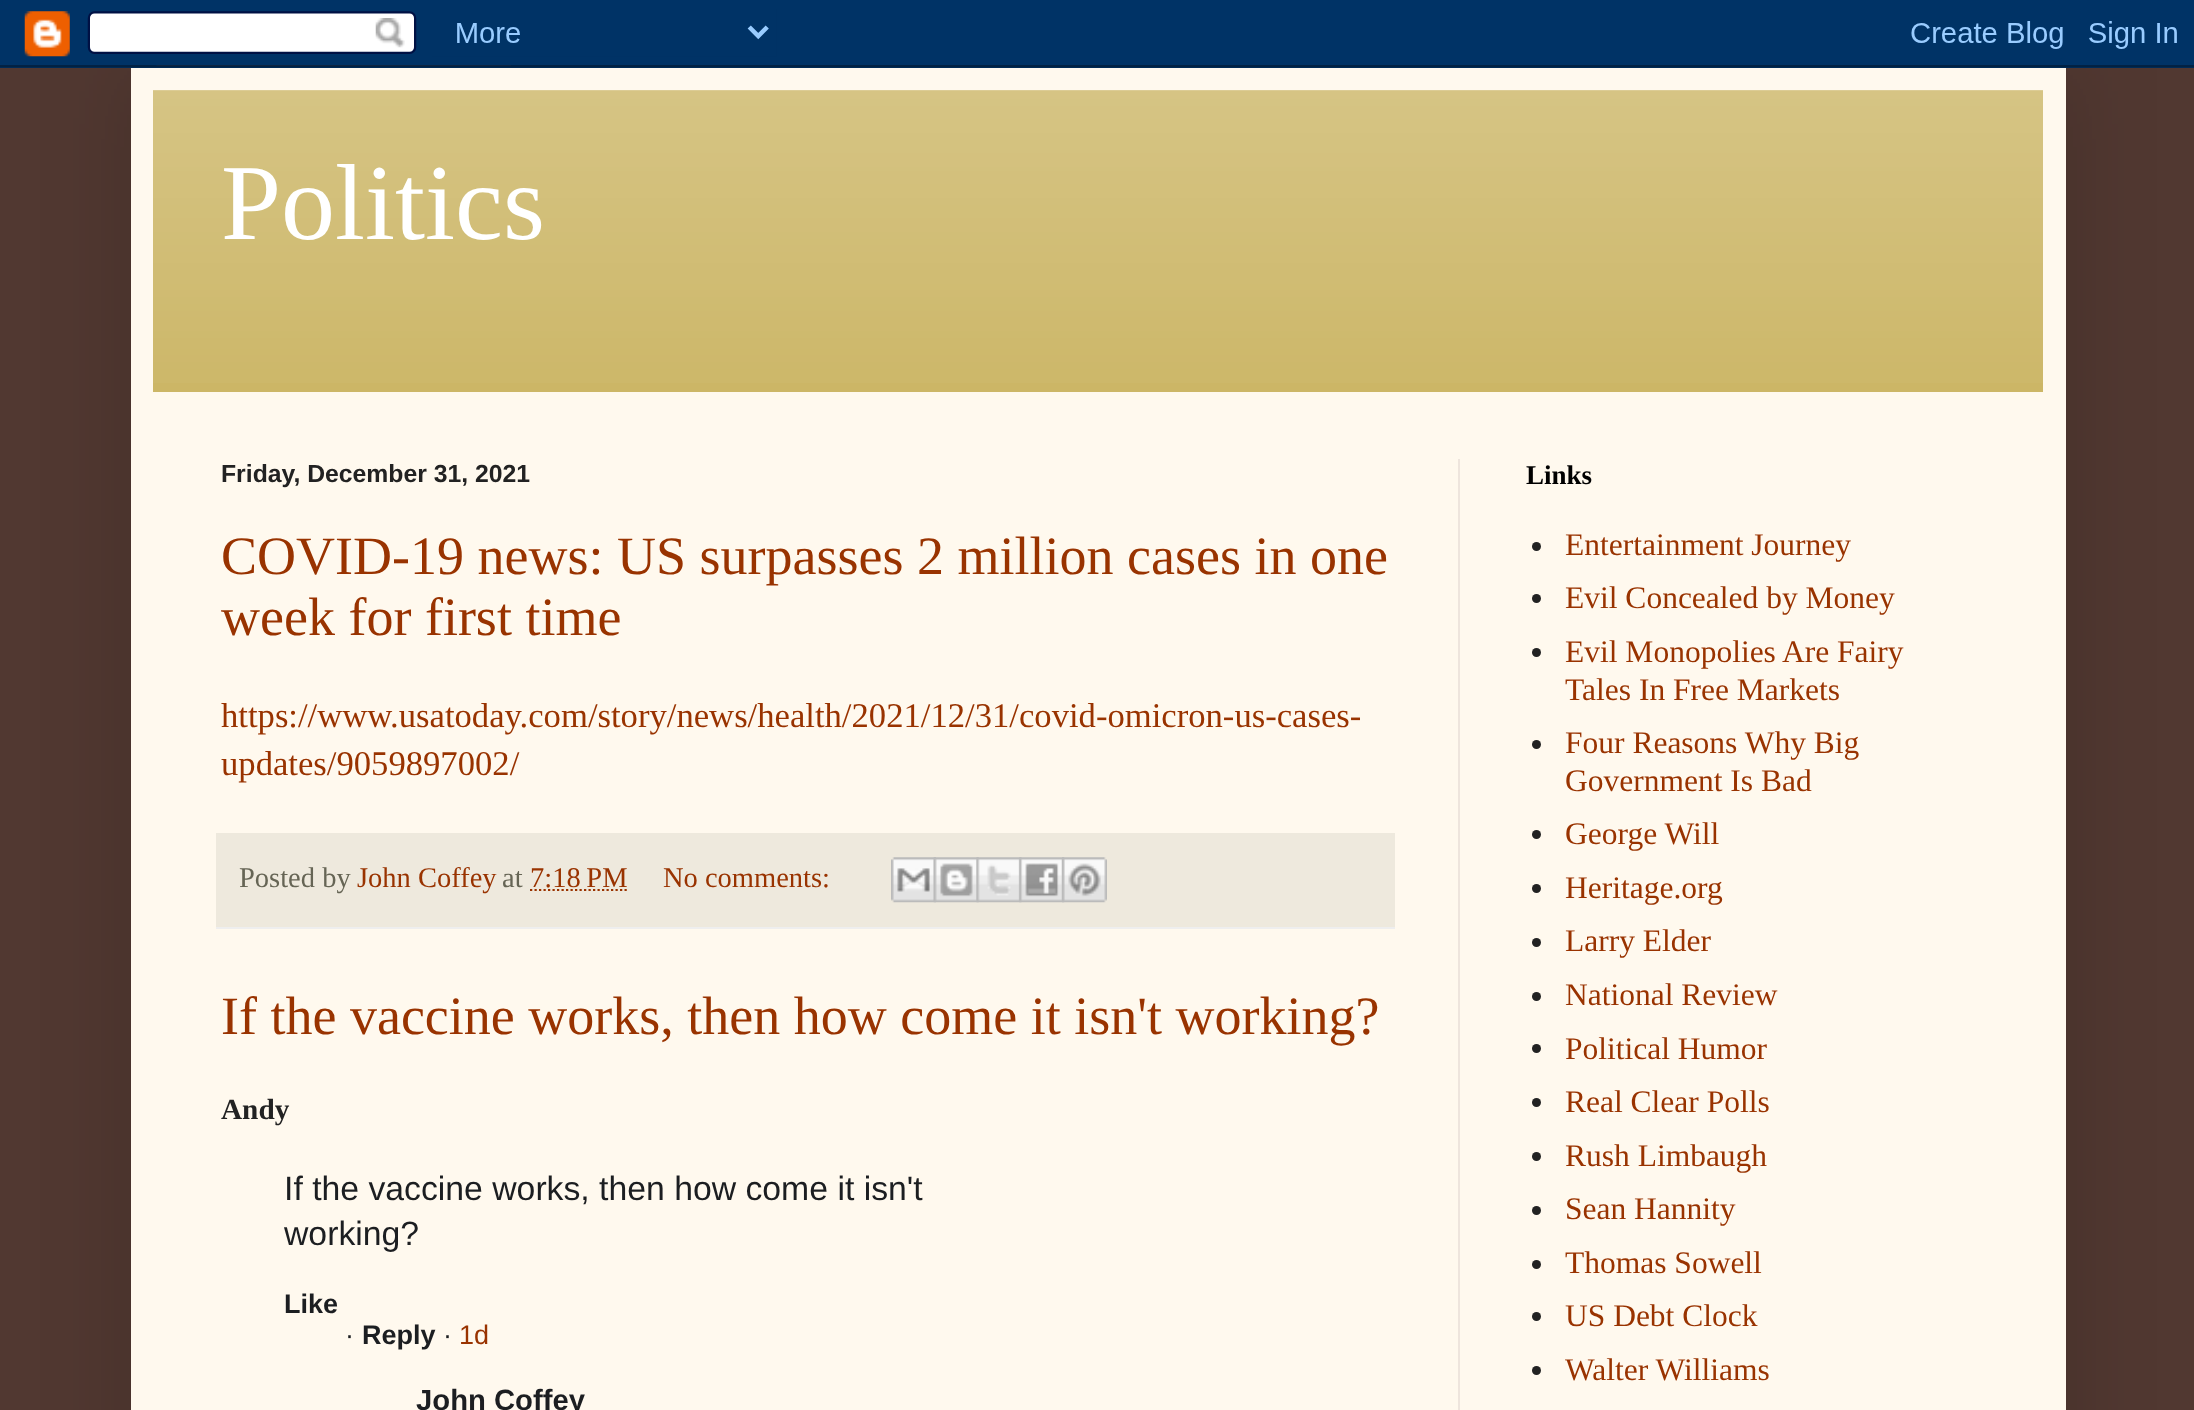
<!DOCTYPE html>
<meta charset="utf-8">
<style>body { margin: 0 } canvas { display: block }</style>
<canvas id="canvas" width="2194" height="1410"></canvas>
<script type="module">
  const canvas = document.getElementById("canvas");
  const ctx = canvas.getContext("2d");
  ctx.miterLimit = 4;
  ctx.fontKerning = "normal";
  async function loadImage(src) {
    const img = new Image();
    img.src = src;
    await img.decode();
    return img;
  }

  ctx.fillStyle = "#513831";
  ctx.fillRect(0, 0, 2194, 1410);
  ctx.fillStyle = "rgba(0, 0, 0, 0.15)";
  ctx.filter = "blur(45px)";
  ctx.beginPath();
  ctx.rect(131, 68, 1935, 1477);
  ctx.fill();
  ctx.filter = "none";
  ctx.drawImage(await loadImage("img1.png"), 0, 0, 2194, 68);
  ctx.fillStyle = "#fff9ee";
  ctx.fillRect(131, 68, 1935, 1342);
  ctx.fillStyle = "#ccb666";
  ctx.fillRect(153, 90, 1890, 302);
  ctx.drawImage(await loadImage("img2.png"), 153, 90, 1890, 293);
  ctx.font = "108px Liberation Serif";
  ctx.fillStyle = "#ffffff";
  ctx.fillText("Politics", 221, 239);
  ctx.fillStyle = "#eee5dd";
  ctx.fillRect(1458, 459, 2, 951);
  ctx.font = "bold 24.75px Liberation Sans";
  ctx.fillStyle = "#222222";
  ctx.fillText("Friday, December 31, 2021", 221, 482);
  ctx.font = "54px Liberation Serif";
  ctx.fillStyle = "#993300";
  ctx.fillText("COVID-19 news: US surpasses 2 million cases in one", 221, 574);
  ctx.fillText("week for first time", 221, 635);
  ctx.font = "34.65px Liberation Serif";
  ctx.fillText("https://www.usatoday.com/story/news/health/2021/12/31/covid-omicron-us-cases-", 221, 727);
  ctx.fillText("updates/9059897002/", 221, 775);
  ctx.fillStyle = "#eee9dd";
  ctx.fillRect(216, 833, 1179, 94);
  ctx.fillStyle = "#eeeeee";
  ctx.fillRect(216, 927, 1179, 2);
  ctx.font = "28.5px Liberation Serif";
  ctx.fillStyle = "#666555";
  ctx.fillText("Posted by", 239, 887);
  ctx.fillStyle = "#993300";
  ctx.fillText("John Coffey", 357, 887);
  ctx.fillStyle = "#666555";
  ctx.fillText("at", 502, 887);
  ctx.fillStyle = "#993300";
  ctx.fillText("7:18 PM", 530, 887);
  ctx.beginPath();
  ctx.moveTo(530, 890);
  ctx.lineTo(627, 890);
  ctx.strokeStyle = "#993300";
  ctx.lineWidth = 2.2;
  ctx.setLineDash([2.25, 2.25]);
  ctx.stroke();
  ctx.fillText("No comments:", 663, 887);
  ctx.drawImage(await loadImage("img3.png"), 891, 857, 45, 46);
  ctx.drawImage(await loadImage("img4.png"), 933, 857, 46, 46);
  ctx.drawImage(await loadImage("img5.png"), 976, 857, 46, 46);
  ctx.drawImage(await loadImage("img6.png"), 1019, 857, 46, 46);
  ctx.drawImage(await loadImage("img7.png"), 1062, 857, 45, 46);
  ctx.font = "54px Liberation Serif";
  ctx.fillText("If the vaccine works, then how come it isn't working?", 221, 1034);
  ctx.font = "bold 29.25px Liberation Serif";
  ctx.fillStyle = "#222222";
  ctx.fillText("Andy", 221, 1119);
  ctx.font = "33.75px Liberation Sans";
  ctx.fillStyle = "#1c1e21";
  ctx.fillText("If the vaccine works, then how come it isn't", 284, 1200);
  ctx.fillText("working?", 284, 1245);
  ctx.font = "bold 27px Liberation Sans";
  ctx.fillText("Like", 284, 1313);
  ctx.font = "27px Liberation Sans";
  ctx.fillText("·", 345, 1344);
  ctx.font = "bold 27px Liberation Sans";
  ctx.fillText("Reply", 362, 1344);
  ctx.font = "27px Liberation Sans";
  ctx.fillText("·", 443, 1344);
  ctx.fillStyle = "#993300";
  ctx.fillText("1d", 459, 1344);
  ctx.font = "bold 29.25px Liberation Sans";
  ctx.fillStyle = "#1c1e21";
  ctx.fillText("John Coffey", 416, 1410);
  ctx.font = "bold 27px Liberation Serif";
  ctx.fillStyle = "#000000";
  ctx.fillText("Links", 1526, 484);
  ctx.fillStyle = "#222222";
  ctx.beginPath();
  ctx.arc(1536.5, 546.5, 4.5, 0, Math.PI * 2);
  ctx.fill();
  ctx.font = "31.5px Liberation Serif";
  ctx.fillStyle = "#993300";
  ctx.fillText("Entertainment Journey", 1565, 555);
  ctx.fillStyle = "#222222";
  ctx.beginPath();
  ctx.arc(1536.5, 598.5, 4.5, 0, Math.PI * 2);
  ctx.fill();
  ctx.fillStyle = "#993300";
  ctx.fillText("Evil Concealed by Money", 1565, 608);
  ctx.fillStyle = "#222222";
  ctx.beginPath();
  ctx.arc(1536.5, 652.5, 4.5, 0, Math.PI * 2);
  ctx.fill();
  ctx.fillStyle = "#993300";
  ctx.fillText("Evil Monopolies Are Fairy", 1565, 662);
  ctx.fillText("Tales In Free Markets", 1565, 700);
  ctx.fillStyle = "#222222";
  ctx.beginPath();
  ctx.arc(1536.5, 744.5, 4.5, 0, Math.PI * 2);
  ctx.fill();
  ctx.fillStyle = "#993300";
  ctx.fillText("Four Reasons Why Big", 1565, 753);
  ctx.fillText("Government Is Bad", 1565, 791);
  ctx.fillStyle = "#222222";
  ctx.beginPath();
  ctx.arc(1536.5, 834.5, 4.5, 0, Math.PI * 2);
  ctx.fill();
  ctx.fillStyle = "#993300";
  ctx.fillText("George Will", 1565, 844);
  ctx.fillStyle = "#222222";
  ctx.beginPath();
  ctx.arc(1536.5, 888.5, 4.5, 0, Math.PI * 2);
  ctx.fill();
  ctx.fillStyle = "#993300";
  ctx.fillText("Heritage.org", 1565, 898);
  ctx.fillStyle = "#222222";
  ctx.beginPath();
  ctx.arc(1536.5, 942.5, 4.5, 0, Math.PI * 2);
  ctx.fill();
  ctx.fillStyle = "#993300";
  ctx.fillText("Larry Elder", 1565, 951);
  ctx.fillStyle = "#222222";
  ctx.beginPath();
  ctx.arc(1536.5, 996.5, 4.5, 0, Math.PI * 2);
  ctx.fill();
  ctx.fillStyle = "#993300";
  ctx.fillText("National Review", 1565, 1005);
  ctx.fillStyle = "#222222";
  ctx.beginPath();
  ctx.arc(1536.5, 1048.5, 4.5, 0, Math.PI * 2);
  ctx.fill();
  ctx.fillStyle = "#993300";
  ctx.fillText("Political Humor", 1565, 1059);
  ctx.fillStyle = "#222222";
  ctx.beginPath();
  ctx.arc(1536.5, 1102.5, 4.5, 0, Math.PI * 2);
  ctx.fill();
  ctx.fillStyle = "#993300";
  ctx.fillText("Real Clear Polls", 1565, 1112);
  ctx.fillStyle = "#222222";
  ctx.beginPath();
  ctx.arc(1536.5, 1156.5, 4.5, 0, Math.PI * 2);
  ctx.fill();
  ctx.fillStyle = "#993300";
  ctx.fillText("Rush Limbaugh", 1565, 1166);
  ctx.fillStyle = "#222222";
  ctx.beginPath();
  ctx.arc(1536.5, 1210.5, 4.5, 0, Math.PI * 2);
  ctx.fill();
  ctx.fillStyle = "#993300";
  ctx.fillText("Sean Hannity", 1565, 1219);
  ctx.fillStyle = "#222222";
  ctx.beginPath();
  ctx.arc(1536.5, 1264.5, 4.5, 0, Math.PI * 2);
  ctx.fill();
  ctx.fillStyle = "#993300";
  ctx.fillText("Thomas Sowell", 1565, 1273);
  ctx.fillStyle = "#222222";
  ctx.beginPath();
  ctx.arc(1536.5, 1316.5, 4.5, 0, Math.PI * 2);
  ctx.fill();
  ctx.fillStyle = "#993300";
  ctx.fillText("US Debt Clock", 1565, 1326);
  ctx.fillStyle = "#222222";
  ctx.beginPath();
  ctx.arc(1536.5, 1370.5, 4.5, 0, Math.PI * 2);
  ctx.fill();
  ctx.fillStyle = "#993300";
  ctx.fillText("Walter Williams", 1565, 1380);
</script>
